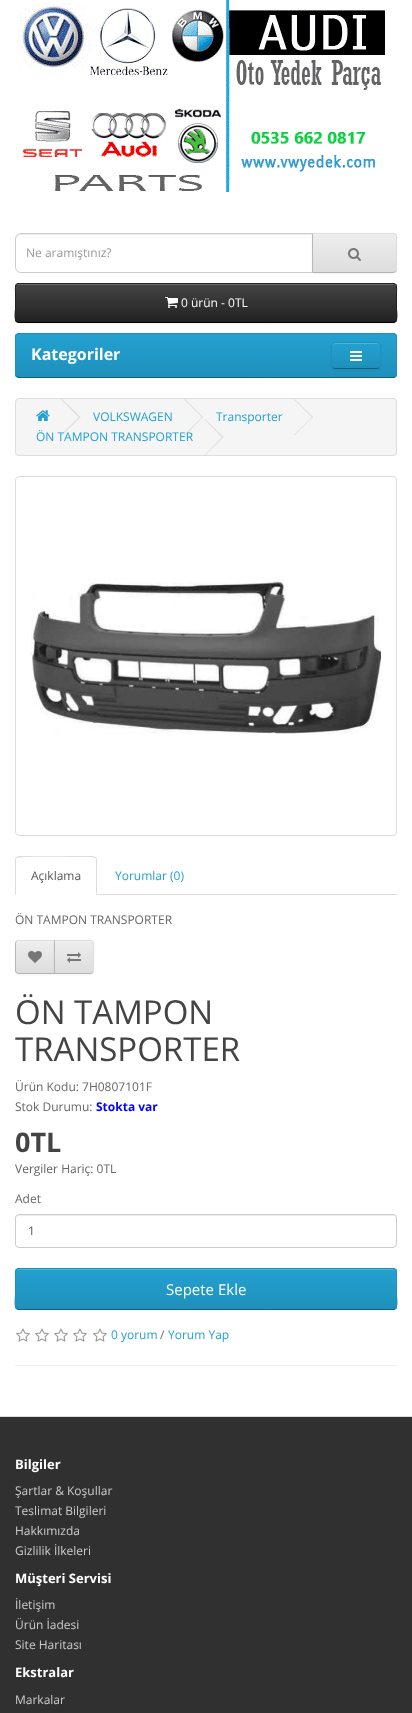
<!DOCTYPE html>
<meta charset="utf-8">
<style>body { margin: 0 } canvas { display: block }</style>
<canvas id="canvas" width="412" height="1713"></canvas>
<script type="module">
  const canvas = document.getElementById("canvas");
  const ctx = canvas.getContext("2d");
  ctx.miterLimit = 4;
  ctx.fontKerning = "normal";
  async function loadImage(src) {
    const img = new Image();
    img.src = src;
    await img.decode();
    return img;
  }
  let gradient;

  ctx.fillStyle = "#ffffff";
  ctx.fillRect(0, 0, 412, 1713);
  ctx.drawImage(await loadImage("img1.png"), 17, 0, 368, 192);
  ctx.fillStyle = "#ececec";
  ctx.beginPath();
  ctx.moveTo(21, 235);
  ctx.lineTo(312, 235);
  ctx.lineTo(312, 234);
  ctx.lineTo(21, 234);
  ctx.bezierCurveTo(18, 234, 16, 236, 16, 239);
  ctx.lineTo(16, 240);
  ctx.bezierCurveTo(16, 237, 18, 235, 21, 235);
  ctx.closePath();
  ctx.fill();
  ctx.beginPath();
  ctx.roundRect(15.5, 233.5, 297, 39, [5.5, 0, 0, 5.5]);
  ctx.strokeStyle = "#cccccc";
  ctx.stroke();
  ctx.font = "12px Open Sans";
  ctx.fillStyle = "#999999";
  ctx.fillText("Ne aramıştınız?", 26, 257);
  ctx.fillStyle = "rgba(0, 0, 0, 0.05)";
  ctx.filter = "blur(1px)";
  ctx.beginPath();
  ctx.roundRect(312, 234, 85, 40, 4);
  ctx.fill();
  ctx.filter = "none";
  ctx.fillStyle = "#e7e7e7";
  ctx.beginPath();
  ctx.roundRect(312, 233, 85, 40, [0, 4, 4, 0]);
  ctx.fill();
  ctx.save();
  ctx.beginPath();
  ctx.roundRect(312, 233, 85, 40, [0, 4, 4, 0]);
  ctx.clip();
  gradient = ctx.createLinearGradient(355, 234, 355, 272);
  gradient.addColorStop(0, "#eeeeee");
  gradient.addColorStop(1, "#dddddd");
  ctx.fillStyle = gradient;
  ctx.fillRect(313, 234, 84, 38);
  ctx.restore();
  ctx.fillStyle = "#f1f1f1";
  ctx.beginPath();
  ctx.moveTo(313, 235);
  ctx.lineTo(393, 235);
  ctx.bezierCurveTo(395, 235, 396, 236, 396, 238);
  ctx.lineTo(396, 237);
  ctx.bezierCurveTo(396, 235, 395, 234, 393, 234);
  ctx.lineTo(313, 234);
  ctx.closePath();
  ctx.fill();
  ctx.fillStyle = "#dddddd";
  ctx.beginPath();
  ctx.moveTo(312, 233);
  ctx.lineTo(313, 234);
  ctx.lineTo(394, 234);
  ctx.lineTo(395, 235);
  ctx.lineTo(396, 234);
  ctx.lineTo(393, 233);
  ctx.closePath();
  ctx.fill();
  ctx.beginPath();
  ctx.moveTo(397, 269);
  ctx.lineTo(397, 237);
  ctx.bezierCurveTo(397, 236, 396.5, 235, 396, 234);
  ctx.lineTo(395, 235);
  ctx.bezierCurveTo(396, 235, 396, 236, 396, 237);
  ctx.lineTo(396, 269);
  ctx.bezierCurveTo(396, 270, 396, 271, 395, 271);
  ctx.lineTo(396, 272);
  ctx.bezierCurveTo(396.5, 271, 397, 270, 397, 269);
  ctx.closePath();
  ctx.fill();
  ctx.fillStyle = "#b3b3b3";
  ctx.beginPath();
  ctx.moveTo(393, 273);
  ctx.lineTo(396, 272);
  ctx.lineTo(395, 271);
  ctx.lineTo(394, 272);
  ctx.lineTo(313, 272);
  ctx.lineTo(312, 273);
  ctx.closePath();
  ctx.fill();
  ctx.fillStyle = "#b7b7b7";
  ctx.beginPath();
  ctx.moveTo(312, 233);
  ctx.lineTo(312, 273);
  ctx.lineTo(313, 272);
  ctx.lineTo(313, 234);
  ctx.closePath();
  ctx.fill();
  ctx.drawImage(await loadImage("img2.png"), 348, 248, 13, 13);
  ctx.fillStyle = "rgba(0, 0, 0, 0.05)";
  ctx.filter = "blur(1px)";
  ctx.beginPath();
  ctx.roundRect(15, 284, 382, 40, 4);
  ctx.fill();
  ctx.filter = "none";
  ctx.fillStyle = "#363636";
  ctx.beginPath();
  ctx.roundRect(15, 283, 382, 40, 4);
  ctx.fill();
  ctx.save();
  ctx.beginPath();
  ctx.roundRect(15, 283, 382, 40, 4);
  ctx.clip();
  gradient = ctx.createLinearGradient(206, 284, 206, 322);
  gradient.addColorStop(0, "#444444");
  gradient.addColorStop(1, "#222222");
  ctx.fillStyle = gradient;
  ctx.fillRect(15, 284, 382, 38);
  ctx.restore();
  ctx.fillStyle = "#696969";
  ctx.beginPath();
  ctx.moveTo(19, 285);
  ctx.lineTo(393, 285);
  ctx.bezierCurveTo(395, 285, 396, 286, 396, 288);
  ctx.bezierCurveTo(396, 286, 395, 284, 393, 284);
  ctx.lineTo(19, 284);
  ctx.lineTo(17, 285);
  ctx.lineTo(16, 288);
  ctx.bezierCurveTo(16, 286, 17, 285, 19, 285);
  ctx.closePath();
  ctx.fill();
  ctx.beginPath();
  ctx.moveTo(395.5, 321.5);
  ctx.lineTo(394, 322.5);
  ctx.lineTo(268.5, 322.5);
  ctx.lineTo(19, 322.5);
  ctx.lineTo(16.5, 321.5);
  ctx.strokeStyle = "#000000";
  ctx.stroke();
  ctx.beginPath();
  ctx.moveTo(16.5, 321.5);
  ctx.bezierCurveTo(14, 319, 15.5, 311, 15.5, 308.5);
  ctx.lineTo(15.5, 292.5);
  ctx.bezierCurveTo(15.5, 289.5, 14.5, 283.5, 19, 283.5);
  ctx.lineTo(393, 283.5);
  ctx.bezierCurveTo(397.5, 283.5, 396.5, 289.5, 396.5, 292.5);
  ctx.lineTo(396.5, 308.5);
  ctx.bezierCurveTo(396.5, 311, 398, 319, 395.5, 321.5);
  ctx.strokeStyle = "#222222";
  ctx.stroke();
  ctx.drawImage(await loadImage("img3.png"), 165, 297, 13, 11);
  ctx.fillStyle = "#ffffff";
  ctx.fillText("0 ürün - 0TL", 181, 307);
  ctx.fillStyle = "#229ac8";
  ctx.beginPath();
  ctx.roundRect(15, 333, 382, 45, 4);
  ctx.fill();
  ctx.save();
  ctx.beginPath();
  ctx.roundRect(15, 333, 382, 45, 4);
  ctx.clip();
  gradient = ctx.createLinearGradient(206, 334, 206, 377);
  gradient.addColorStop(0, "#23a1d1");
  gradient.addColorStop(1, "#1f90bb");
  ctx.fillStyle = gradient;
  ctx.fillRect(15, 334, 382, 43);
  ctx.restore();
  ctx.beginPath();
  ctx.moveTo(395.5, 376.5);
  ctx.lineTo(394, 377.5);
  ctx.lineTo(268.5, 377.5);
  ctx.lineTo(19, 377.5);
  ctx.lineTo(16.5, 376.5);
  ctx.strokeStyle = "#145e7a";
  ctx.stroke();
  ctx.beginPath();
  ctx.moveTo(16.5, 376.5);
  ctx.bezierCurveTo(16, 376, 15.5, 375, 15.5, 374);
  ctx.lineTo(15.5, 337);
  ctx.bezierCurveTo(15.5, 336, 16, 335, 16.5, 334.5);
  ctx.bezierCurveTo(17, 334, 18, 333.5, 19, 333.5);
  ctx.lineTo(393, 333.5);
  ctx.bezierCurveTo(394, 333.5, 395, 334, 395.5, 334.5);
  ctx.bezierCurveTo(396, 335, 396.5, 336, 396.5, 337);
  ctx.lineTo(396.5, 374);
  ctx.bezierCurveTo(396.5, 375, 396, 376, 395.5, 376.5);
  ctx.strokeStyle = "#1f90bb";
  ctx.stroke();
  ctx.font = "bold 16px Open Sans";
  ctx.fillStyle = "#ffffff";
  ctx.fillText("Kategoriler", 31, 360);
  ctx.fillStyle = "rgba(0, 0, 0, 0.05)";
  ctx.filter = "blur(1px)";
  ctx.beginPath();
  ctx.roundRect(331, 343, 50, 27, 4);
  ctx.fill();
  ctx.filter = "none";
  ctx.fillStyle = "#229ac8";
  ctx.beginPath();
  ctx.roundRect(331, 342, 50, 27, 4);
  ctx.fill();
  ctx.save();
  ctx.beginPath();
  ctx.roundRect(331, 342, 50, 27, 4);
  ctx.clip();
  gradient = ctx.createLinearGradient(356, 343, 356, 368);
  gradient.addColorStop(0, "#23a1d1");
  gradient.addColorStop(1, "#1f90bb");
  ctx.fillStyle = gradient;
  ctx.fillRect(331, 343, 50, 25);
  ctx.restore();
  ctx.fillStyle = "#4fb4da";
  ctx.beginPath();
  ctx.moveTo(335, 344);
  ctx.lineTo(377, 344);
  ctx.bezierCurveTo(379, 344, 380, 345, 380, 347);
  ctx.bezierCurveTo(380, 341, 374, 343, 370, 343);
  ctx.lineTo(342, 343);
  ctx.bezierCurveTo(338, 343, 332, 341, 332, 347);
  ctx.bezierCurveTo(332, 345, 333, 344, 335, 344);
  ctx.closePath();
  ctx.fill();
  ctx.beginPath();
  ctx.moveTo(379.5, 367.5);
  ctx.bezierCurveTo(379, 368, 378, 368.5, 377, 368.5);
  ctx.lineTo(335, 368.5);
  ctx.bezierCurveTo(334, 368.5, 333, 368, 332.5, 367.5);
  ctx.strokeStyle = "#145e7a";
  ctx.stroke();
  ctx.beginPath();
  ctx.moveTo(332.5, 367.5);
  ctx.bezierCurveTo(330.5, 365.5, 331.5, 358, 331.5, 355.5);
  ctx.bezierCurveTo(331.5, 342.5, 329.5, 342.5, 342, 342.5);
  ctx.lineTo(370, 342.5);
  ctx.bezierCurveTo(382.5, 342.5, 380.5, 342.5, 380.5, 355.5);
  ctx.bezierCurveTo(380.5, 358, 381.5, 365.5, 379.5, 367.5);
  ctx.strokeStyle = "#1f90bb";
  ctx.stroke();
  ctx.drawImage(await loadImage("img4.png"), 350, 351, 12, 10);
  ctx.fillStyle = "#f5f5f5";
  ctx.beginPath();
  ctx.roundRect(15.5, 398.5, 381, 57, 3.5);
  ctx.fill();
  ctx.strokeStyle = "#dddddd";
  ctx.stroke();
  ctx.drawImage(await loadImage("img5.png"), 36, 410, 14, 11);
  ctx.fillStyle = "#dddddd";
  ctx.beginPath();
  ctx.moveTo(61, 399.5);
  ctx.lineTo(62, 399);
  ctx.lineTo(80.5, 417);
  ctx.lineTo(79.5, 418);
  ctx.closePath();
  ctx.fill();
  ctx.beginPath();
  ctx.moveTo(61, 435);
  ctx.lineTo(79.5, 416.5);
  ctx.lineTo(80.5, 417);
  ctx.lineTo(62, 435.5);
  ctx.closePath();
  ctx.fill();
  ctx.font = "12px Open Sans";
  ctx.fillStyle = "#23a1d1";
  ctx.fillText("VOLKSWAGEN", 93, 421);
  ctx.fillStyle = "#dddddd";
  ctx.beginPath();
  ctx.moveTo(184, 399.5);
  ctx.lineTo(185, 399);
  ctx.lineTo(203, 417);
  ctx.lineTo(202.5, 418);
  ctx.closePath();
  ctx.fill();
  ctx.beginPath();
  ctx.moveTo(184, 435);
  ctx.lineTo(202.5, 416.5);
  ctx.lineTo(203, 417);
  ctx.lineTo(185, 435.5);
  ctx.closePath();
  ctx.fill();
  ctx.fillStyle = "#23a1d1";
  ctx.fillText("Transporter", 216, 421);
  ctx.fillStyle = "#dddddd";
  ctx.beginPath();
  ctx.moveTo(294, 399.5);
  ctx.lineTo(294.5, 399);
  ctx.lineTo(313, 417);
  ctx.lineTo(312.5, 418);
  ctx.closePath();
  ctx.fill();
  ctx.beginPath();
  ctx.moveTo(294, 435);
  ctx.lineTo(312.5, 416.5);
  ctx.lineTo(313, 417);
  ctx.lineTo(294.5, 435.5);
  ctx.closePath();
  ctx.fill();
  ctx.fillStyle = "#23a1d1";
  ctx.fillText("ÖN TAMPON TRANSPORTER", 36, 441);
  ctx.fillStyle = "#dddddd";
  ctx.beginPath();
  ctx.moveTo(204.5, 419.5);
  ctx.lineTo(205, 419);
  ctx.lineTo(223.5, 437);
  ctx.lineTo(222.5, 438);
  ctx.closePath();
  ctx.fill();
  ctx.beginPath();
  ctx.moveTo(204.5, 455);
  ctx.lineTo(222.5, 436.5);
  ctx.lineTo(223.5, 437);
  ctx.lineTo(205, 455.5);
  ctx.closePath();
  ctx.fill();
  ctx.beginPath();
  ctx.roundRect(15.5, 476.5, 381, 359, 3.5);
  ctx.stroke();
  ctx.drawImage(await loadImage("img6.png"), 31, 578, 350, 156);
  ctx.fillRect(97, 894, 300, 1);
  ctx.beginPath();
  ctx.moveTo(19, 856);
  ctx.lineTo(16, 857);
  ctx.lineTo(17, 858);
  ctx.bezierCurveTo(19, 856, 74, 857, 81, 857);
  ctx.lineTo(93, 857);
  ctx.lineTo(95, 858);
  ctx.lineTo(96, 857);
  ctx.lineTo(93, 856);
  ctx.closePath();
  ctx.fill();
  ctx.beginPath();
  ctx.moveTo(97, 895);
  ctx.lineTo(97, 860);
  ctx.bezierCurveTo(97, 859, 96.5, 858, 96, 857);
  ctx.lineTo(95, 858);
  ctx.bezierCurveTo(96, 858, 96, 859, 96, 860);
  ctx.lineTo(96, 894);
  ctx.closePath();
  ctx.fill();
  ctx.beginPath();
  ctx.moveTo(15, 895);
  ctx.lineTo(16, 894);
  ctx.lineTo(16, 860);
  ctx.bezierCurveTo(16, 859, 16, 858, 17, 858);
  ctx.lineTo(16, 857);
  ctx.bezierCurveTo(15.5, 858, 15, 859, 15, 860);
  ctx.closePath();
  ctx.fill();
  ctx.fillStyle = "#555555";
  ctx.fillText("Açıklama", 31, 880);
  ctx.fillStyle = "#23a1d1";
  ctx.fillText("Yorumlar (0)", 115, 880);
  ctx.fillStyle = "#666666";
  ctx.fillText("ÖN TAMPON TRANSPORTER", 15, 924);
  ctx.fillStyle = "rgba(0, 0, 0, 0.05)";
  ctx.filter = "blur(1px)";
  ctx.beginPath();
  ctx.roundRect(15, 941, 40, 34, 4);
  ctx.fill();
  ctx.filter = "none";
  ctx.save();
  ctx.beginPath();
  ctx.roundRect(15, 940, 40, 34, [4, 0, 0, 4]);
  ctx.clip();
  gradient = ctx.createLinearGradient(35, 941, 35, 973);
  gradient.addColorStop(0, "#eeeeee");
  gradient.addColorStop(1, "#dddddd");
  ctx.fillStyle = gradient;
  ctx.fillRect(15, 941, 39, 32);
  ctx.restore();
  ctx.fillStyle = "#f1f1f1";
  ctx.beginPath();
  ctx.moveTo(19, 942);
  ctx.lineTo(54, 942);
  ctx.lineTo(54, 941);
  ctx.lineTo(19, 941);
  ctx.bezierCurveTo(17.5, 941, 16, 942.5, 16, 944);
  ctx.lineTo(16, 945);
  ctx.bezierCurveTo(16, 943, 17, 942, 19, 942);
  ctx.closePath();
  ctx.fill();
  ctx.fillStyle = "#dddddd";
  ctx.beginPath();
  ctx.moveTo(19, 940);
  ctx.bezierCurveTo(18, 940, 17, 940.5, 16, 941);
  ctx.lineTo(17, 942);
  ctx.bezierCurveTo(17, 941, 18, 941, 19, 941);
  ctx.lineTo(54, 941);
  ctx.lineTo(55, 940);
  ctx.closePath();
  ctx.fill();
  ctx.fillStyle = "#b3b3b3";
  ctx.beginPath();
  ctx.moveTo(55, 974);
  ctx.lineTo(54, 973);
  ctx.lineTo(19, 973);
  ctx.bezierCurveTo(18, 973, 17, 973, 17, 972);
  ctx.lineTo(16, 973);
  ctx.bezierCurveTo(17, 973.5, 18, 974, 19, 974);
  ctx.closePath();
  ctx.fill();
  ctx.fillStyle = "#b7b7b7";
  ctx.beginPath();
  ctx.moveTo(15, 944);
  ctx.lineTo(15, 970);
  ctx.bezierCurveTo(15, 971, 15.5, 972, 16, 973);
  ctx.lineTo(17, 972);
  ctx.bezierCurveTo(16, 972, 16, 971, 16, 970);
  ctx.lineTo(16, 944);
  ctx.bezierCurveTo(16, 943, 16, 942, 17, 942);
  ctx.lineTo(16, 941);
  ctx.bezierCurveTo(15.5, 942, 15, 943, 15, 944);
  ctx.closePath();
  ctx.fill();
  ctx.drawImage(await loadImage("img7.png"), 28, 951, 14, 12);
  ctx.fillStyle = "rgba(0, 0, 0, 0.05)";
  ctx.filter = "blur(1px)";
  ctx.beginPath();
  ctx.roundRect(54, 941, 40, 34, 4);
  ctx.fill();
  ctx.filter = "none";
  ctx.save();
  ctx.beginPath();
  ctx.roundRect(54, 940, 40, 34, [0, 4, 4, 0]);
  ctx.clip();
  gradient = ctx.createLinearGradient(74, 941, 74, 973);
  gradient.addColorStop(0, "#eeeeee");
  gradient.addColorStop(1, "#dddddd");
  ctx.fillStyle = gradient;
  ctx.fillRect(55, 941, 39, 32);
  ctx.restore();
  ctx.fillStyle = "#f1f1f1";
  ctx.beginPath();
  ctx.moveTo(55, 942);
  ctx.lineTo(90, 942);
  ctx.bezierCurveTo(92, 942, 93, 943, 93, 945);
  ctx.lineTo(93, 944);
  ctx.bezierCurveTo(93, 942.5, 91.5, 941, 90, 941);
  ctx.lineTo(55, 941);
  ctx.closePath();
  ctx.fill();
  ctx.fillStyle = "#dddddd";
  ctx.beginPath();
  ctx.moveTo(54, 940);
  ctx.lineTo(55, 941);
  ctx.lineTo(90, 941);
  ctx.bezierCurveTo(91, 941, 92, 941, 92, 942);
  ctx.lineTo(93, 941);
  ctx.bezierCurveTo(92, 940.5, 91, 940, 90, 940);
  ctx.closePath();
  ctx.fill();
  ctx.beginPath();
  ctx.moveTo(94, 970);
  ctx.lineTo(94, 944);
  ctx.bezierCurveTo(94, 943, 93.5, 942, 93, 941);
  ctx.lineTo(92, 942);
  ctx.bezierCurveTo(93, 942, 93, 943, 93, 944);
  ctx.lineTo(93, 970);
  ctx.bezierCurveTo(93, 971, 93, 972, 92, 972);
  ctx.lineTo(93, 973);
  ctx.bezierCurveTo(93.5, 972, 94, 971, 94, 970);
  ctx.closePath();
  ctx.fill();
  ctx.fillStyle = "#b3b3b3";
  ctx.beginPath();
  ctx.moveTo(90, 974);
  ctx.bezierCurveTo(91, 974, 92, 973.5, 93, 973);
  ctx.lineTo(92, 972);
  ctx.bezierCurveTo(92, 973, 91, 973, 90, 973);
  ctx.lineTo(55, 973);
  ctx.lineTo(54, 974);
  ctx.closePath();
  ctx.fill();
  ctx.fillStyle = "#b7b7b7";
  ctx.beginPath();
  ctx.moveTo(54, 940);
  ctx.lineTo(54, 974);
  ctx.lineTo(55, 973);
  ctx.lineTo(55, 941);
  ctx.closePath();
  ctx.fill();
  ctx.drawImage(await loadImage("img8.png"), 67, 952, 14, 11);
  ctx.font = "33px Open Sans";
  ctx.fillStyle = "#444444";
  ctx.fillText("ÖN TAMPON", 15, 1024);
  ctx.fillText("TRANSPORTER", 15, 1061);
  ctx.font = "12px Open Sans";
  ctx.fillStyle = "#666666";
  ctx.fillText("Ürün Kodu: 7H0807101F", 15, 1091);
  ctx.fillText("Stok Durumu:", 15, 1111);
  ctx.font = "bold 12px Open Sans";
  ctx.fillStyle = "#0000ff";
  ctx.fillText("Stokta var", 96, 1111);
  ctx.font = "bold 27px Open Sans";
  ctx.fillStyle = "#444444";
  ctx.fillText("0TL", 15, 1152);
  ctx.font = "12px Open Sans";
  ctx.fillStyle = "#666666";
  ctx.fillText("Vergiler Hariç: 0TL", 15, 1173);
  ctx.fillText("Adet", 15, 1203);
  ctx.fillStyle = "#ececec";
  ctx.beginPath();
  ctx.moveTo(19, 1216);
  ctx.lineTo(393, 1216);
  ctx.bezierCurveTo(395, 1216, 396, 1217, 396, 1219);
  ctx.bezierCurveTo(396, 1217, 395, 1215, 393, 1215);
  ctx.lineTo(19, 1215);
  ctx.lineTo(17, 1216);
  ctx.lineTo(16, 1219);
  ctx.bezierCurveTo(16, 1217, 17, 1216, 19, 1216);
  ctx.closePath();
  ctx.fill();
  ctx.beginPath();
  ctx.roundRect(15.5, 1214.5, 381, 33, 3.5);
  ctx.strokeStyle = "#cccccc";
  ctx.stroke();
  ctx.fillStyle = "#555555";
  ctx.fillText("1", 28, 1235);
  ctx.fillStyle = "rgba(0, 0, 0, 0.05)";
  ctx.filter = "blur(1px)";
  ctx.beginPath();
  ctx.roundRect(15, 1269, 382, 42, 4);
  ctx.fill();
  ctx.filter = "none";
  ctx.fillStyle = "#229ac8";
  ctx.beginPath();
  ctx.roundRect(15, 1268, 382, 42, 4);
  ctx.fill();
  ctx.save();
  ctx.beginPath();
  ctx.roundRect(15, 1268, 382, 42, 4);
  ctx.clip();
  gradient = ctx.createLinearGradient(206, 1269, 206, 1309);
  gradient.addColorStop(0, "#23a1d1");
  gradient.addColorStop(1, "#1f90bb");
  ctx.fillStyle = gradient;
  ctx.fillRect(15, 1269, 382, 40);
  ctx.restore();
  ctx.fillStyle = "#4fb4da";
  ctx.beginPath();
  ctx.moveTo(19, 1270);
  ctx.lineTo(393, 1270);
  ctx.bezierCurveTo(395, 1270, 396, 1271, 396, 1273);
  ctx.bezierCurveTo(396, 1271, 395, 1269, 393, 1269);
  ctx.lineTo(19, 1269);
  ctx.lineTo(17, 1270);
  ctx.lineTo(16, 1273);
  ctx.bezierCurveTo(16, 1271, 17, 1270, 19, 1270);
  ctx.closePath();
  ctx.fill();
  ctx.beginPath();
  ctx.moveTo(395.5, 1308.5);
  ctx.lineTo(394, 1309.5);
  ctx.lineTo(268.5, 1309.5);
  ctx.lineTo(19, 1309.5);
  ctx.lineTo(16.5, 1308.5);
  ctx.strokeStyle = "#145e7a";
  ctx.stroke();
  ctx.beginPath();
  ctx.moveTo(16.5, 1308.5);
  ctx.bezierCurveTo(14, 1306, 15.5, 1297.5, 15.5, 1294.5);
  ctx.lineTo(15.5, 1277.5);
  ctx.bezierCurveTo(15.5, 1275, 14.5, 1268.5, 19, 1268.5);
  ctx.lineTo(393, 1268.5);
  ctx.bezierCurveTo(397.5, 1268.5, 396.5, 1275, 396.5, 1277.5);
  ctx.lineTo(396.5, 1294.5);
  ctx.bezierCurveTo(396.5, 1297.5, 398, 1306, 395.5, 1308.5);
  ctx.strokeStyle = "#1f90bb";
  ctx.stroke();
  ctx.font = "15px Open Sans";
  ctx.fillStyle = "#ffffff";
  ctx.fillText("Sepete Ekle", 166, 1295);
  ctx.drawImage(await loadImage("img9.png"), 16, 1328, 14, 14);
  ctx.drawImage(await loadImage("img9.png"), 35, 1328, 14, 14);
  ctx.drawImage(await loadImage("img9.png"), 54, 1328, 14, 14);
  ctx.drawImage(await loadImage("img9.png"), 73, 1328, 14, 14);
  ctx.drawImage(await loadImage("img9.png"), 93, 1328, 14, 14);
  ctx.font = "12px Open Sans";
  ctx.fillStyle = "#23a1d1";
  ctx.fillText("0 yorum", 111, 1339);
  ctx.fillStyle = "#666666";
  ctx.fillText("/", 160, 1339);
  ctx.fillStyle = "#23a1d1";
  ctx.fillText("Yorum Yap", 168, 1339);
  ctx.fillStyle = "#eeeeee";
  ctx.fillRect(15, 1365, 382, 1);
  ctx.fillStyle = "#303030";
  ctx.fillRect(0, 1417, 412, 296);
  ctx.fillStyle = "#dddddd";
  ctx.fillRect(0, 1416, 412, 1);
  ctx.font = "bold 13px Open Sans";
  ctx.fillStyle = "#ffffff";
  ctx.fillText("Bilgiler", 15, 1469);
  ctx.font = "12px Open Sans";
  ctx.fillStyle = "#cccccc";
  ctx.fillText("Şartlar & Koşullar", 15, 1495);
  ctx.fillText("Teslimat Bilgileri", 15, 1515);
  ctx.fillText("Hakkımızda", 15, 1535);
  ctx.fillText("Gizlilik İlkeleri", 15, 1555);
  ctx.font = "bold 13px Open Sans";
  ctx.fillStyle = "#ffffff";
  ctx.fillText("Müşteri Servisi", 15, 1583);
  ctx.font = "12px Open Sans";
  ctx.fillStyle = "#cccccc";
  ctx.fillText("İletişim", 15, 1609);
  ctx.fillText("Ürün İadesi", 15, 1629);
  ctx.fillText("Site Haritası", 15, 1649);
  ctx.font = "bold 13px Open Sans";
  ctx.fillStyle = "#ffffff";
  ctx.fillText("Ekstralar", 15, 1677);
  ctx.font = "12px Open Sans";
  ctx.fillStyle = "#cccccc";
  ctx.fillText("Markalar", 15, 1704);
</script>
